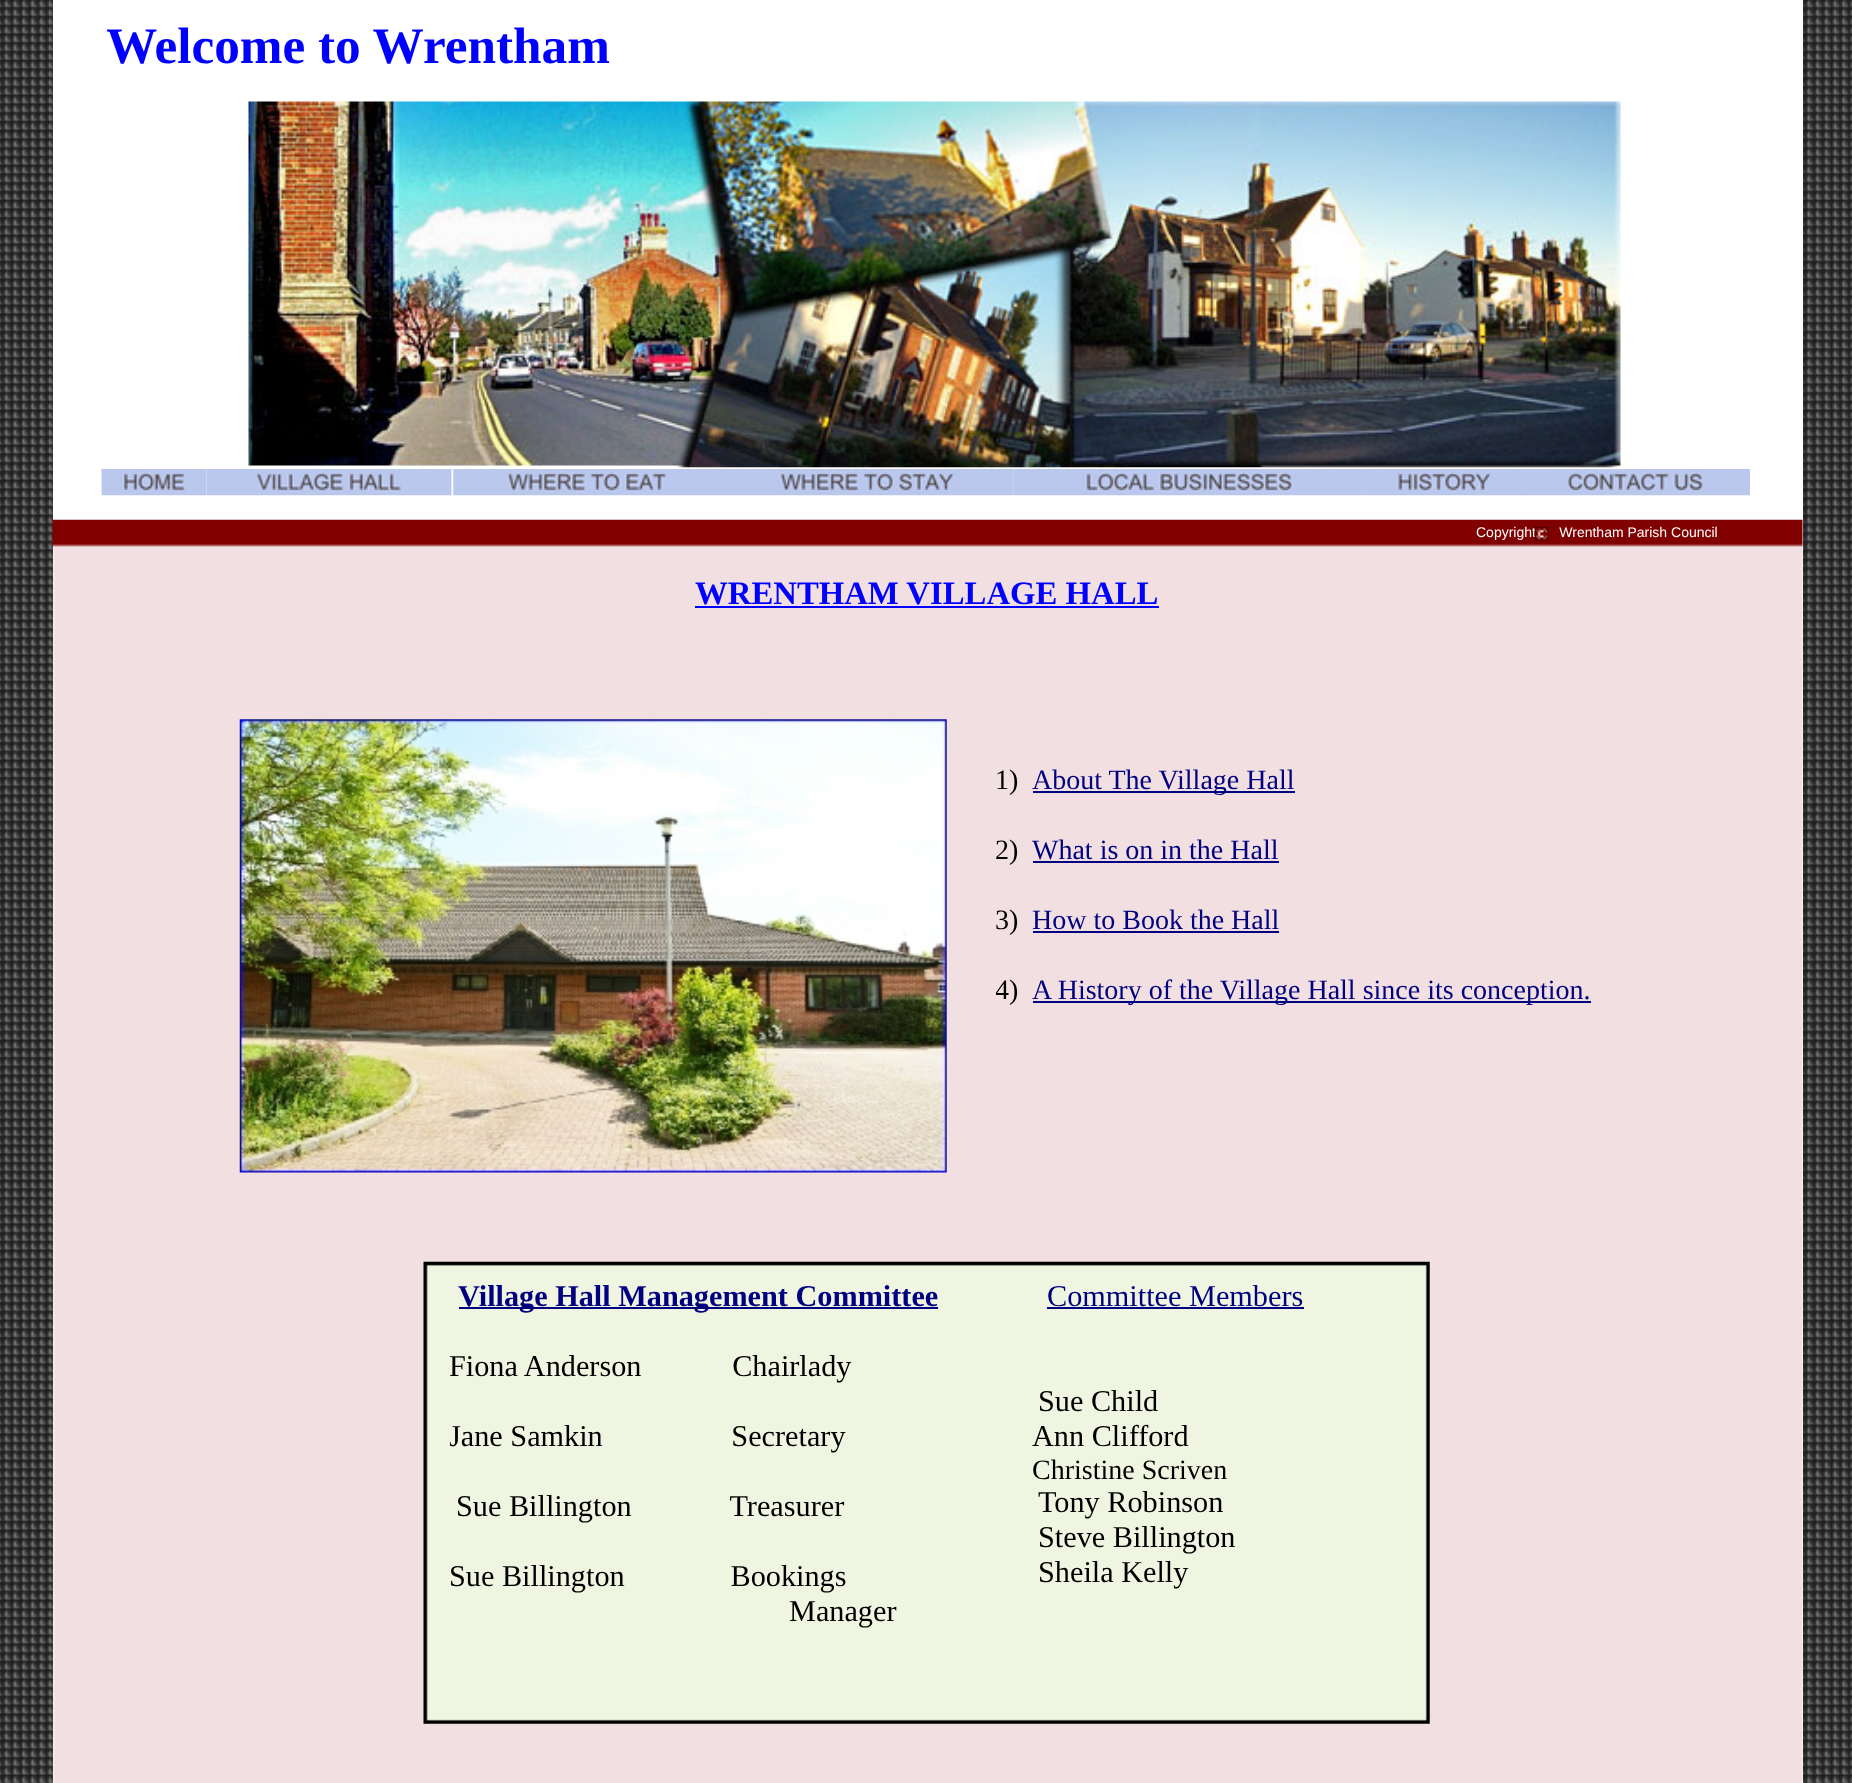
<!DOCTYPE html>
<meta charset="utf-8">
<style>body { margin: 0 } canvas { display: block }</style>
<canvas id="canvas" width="1852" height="1783"></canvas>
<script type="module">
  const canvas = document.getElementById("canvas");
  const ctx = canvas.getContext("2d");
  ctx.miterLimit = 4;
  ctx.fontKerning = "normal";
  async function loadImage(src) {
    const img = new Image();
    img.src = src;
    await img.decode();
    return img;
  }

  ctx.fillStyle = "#ffffff";
  ctx.fillRect(0, 0, 1852, 1783);
  ctx.drawImage(await loadImage("img1.png"), 0, 0, 1852, 1783);
  ctx.fillRect(53, 0, 1750, 1783);
  ctx.save();
  ctx.beginPath();
  ctx.rect(107, 16, 665, 86);
  ctx.clip();
  ctx.font = "bold 51.25px Liberation Serif";
  ctx.fillStyle = "#0000ff";
  ctx.fillText("Welcome to Wrentham", 106, 63);
  ctx.restore();
  ctx.drawImage(await loadImage("img2.png"), 248, 101, 1373, 367);
  ctx.drawImage(await loadImage("img3.png"), 101, 469, 106, 27);
  ctx.drawImage(await loadImage("img4.png"), 206, 469, 246, 27);
  ctx.drawImage(await loadImage("img5.png"), 453, 469, 268, 27);
  ctx.drawImage(await loadImage("img6.png"), 721, 469, 293, 27);
  ctx.drawImage(await loadImage("img7.png"), 1013, 469, 352, 27);
  ctx.drawImage(await loadImage("img8.png"), 1365, 469, 158, 27);
  ctx.drawImage(await loadImage("img9.png"), 1521, 469, 229, 27);
  ctx.drawImage(await loadImage("img10.png"), 52, 519, 1751, 1264);
  ctx.font = "14px Liberation Sans";
  ctx.fillText("Copyright      Wrentham Parish Council", 1476, 537);
  ctx.drawImage(await loadImage("img11.png"), 1534, 526, 15, 15);
  ctx.font = "bold 32.75px Liberation Serif";
  ctx.fillStyle = "#0000ff";
  ctx.fillText("WRENTHAM VILLAGE HALL", 695, 604);
  ctx.fillRect(695, 606, 464, 2);
  ctx.drawImage(await loadImage("img12.png"), 239, 719, 708, 454);
  ctx.font = "28px Liberation Serif";
  ctx.fillStyle = "#000000";
  ctx.fillText("1)", 995, 789);
  ctx.fillStyle = "#000080";
  ctx.fillRect(1033, 791, 262, 2);
  ctx.fillText("About The Village Hall", 1032, 789);
  ctx.fillStyle = "#000000";
  ctx.fillText("2)", 995, 859);
  ctx.fillStyle = "#000080";
  ctx.fillText("What is on in the Hall", 1032, 859);
  ctx.fillRect(1033, 861, 246, 2);
  ctx.fillStyle = "#000000";
  ctx.fillText("3)", 995, 929);
  ctx.fillStyle = "#000080";
  ctx.fillText("How to Book the Hall", 1032, 929);
  ctx.fillRect(1033, 931, 246, 2);
  ctx.save();
  ctx.beginPath();
  ctx.rect(996, 763, 616, 368);
  ctx.clip();
  ctx.fillStyle = "#000000";
  ctx.fillText("4)", 995, 999);
  ctx.restore();
  ctx.fillRect(1033, 1001, 558, 2);
  ctx.fillText("A History of the Village Hall since its conception.", 1032, 999);
  ctx.drawImage(await loadImage("img13.png"), 423, 1261, 1007, 463);
  ctx.fillRect(459, 1307, 479, 2);
  ctx.font = "bold 30.25px Liberation Serif";
  ctx.fillText("Village Hall Management Committee", 458, 1306);
  ctx.font = "30.25px Liberation Serif";
  ctx.fillStyle = "#000000";
  ctx.fillText("Fiona Anderson            Chairlady", 449, 1376);
  ctx.save();
  ctx.beginPath();
  ctx.rect(450, 1279, 499, 410);
  ctx.clip();
  ctx.fillText("Jane Samkin                 Secretary", 449, 1446);
  ctx.restore();
  ctx.fillText("Sue Billington             Treasurer", 456, 1516);
  ctx.fillText("Sue Billington              Bookings", 449, 1586);
  ctx.fillText("Manager", 789, 1621);
  ctx.fillStyle = "#000080";
  ctx.fillText("Committee Members", 1047, 1306);
  ctx.fillRect(1047, 1307, 257, 2);
  ctx.fillStyle = "#000000";
  ctx.fillText("Sue Child", 1038, 1411);
  ctx.fillText("Ann Clifford", 1032, 1446);
  ctx.font = "28px Liberation Serif";
  ctx.fillText("Christine Scriven", 1032, 1479);
  ctx.font = "30.25px Liberation Serif";
  ctx.fillText("Tony Robinson", 1038, 1512);
  ctx.fillText("Steve Billington", 1038, 1547);
  ctx.fillText("Sheila Kelly", 1038, 1582);
</script>
